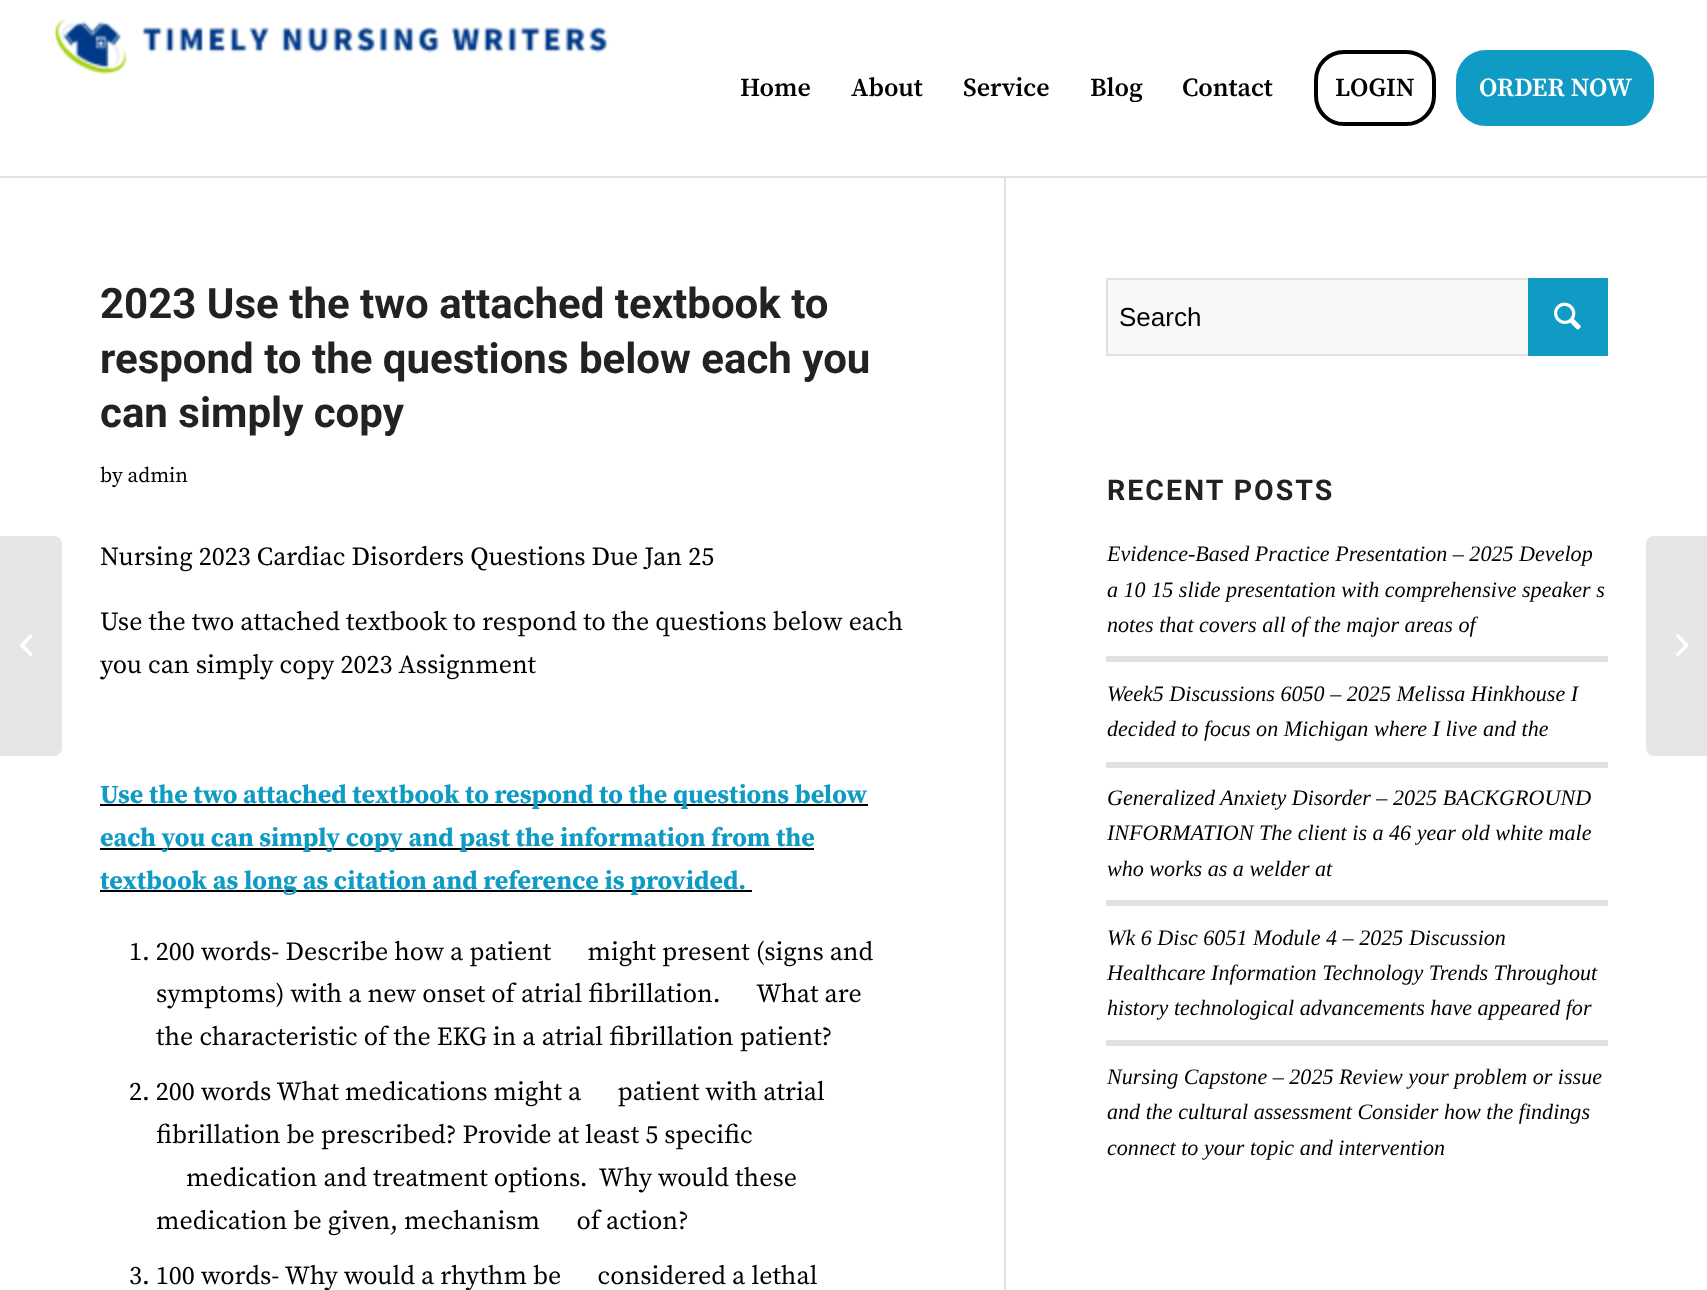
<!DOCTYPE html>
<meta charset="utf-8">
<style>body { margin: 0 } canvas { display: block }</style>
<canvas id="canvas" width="1707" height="1290"></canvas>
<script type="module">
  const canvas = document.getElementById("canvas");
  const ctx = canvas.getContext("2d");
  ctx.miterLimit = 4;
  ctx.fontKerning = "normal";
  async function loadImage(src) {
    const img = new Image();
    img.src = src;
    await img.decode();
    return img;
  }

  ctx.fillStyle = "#ffffff";
  ctx.fillRect(0, 0, 1707, 1290);
  ctx.fillStyle = "#e1e1e1";
  ctx.fillRect(0, 176, 1707, 2);
  ctx.drawImage(await loadImage("img1.png"), 53, 19, 556, 56);
  ctx.font = "600 26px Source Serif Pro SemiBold";
  ctx.fillStyle = "#000000";
  ctx.fillText("Home", 740, 96);
  ctx.fillText("About", 851, 96);
  ctx.fillText("Service", 963, 96);
  ctx.fillText("Blog", 1090, 96);
  ctx.fillText("Contact", 1182, 96);
  ctx.beginPath();
  ctx.roundRect(1316, 52, 118, 72, 28);
  ctx.strokeStyle = "#000000";
  ctx.lineWidth = 4;
  ctx.stroke();
  ctx.fillText("LOGIN", 1335, 96);
  ctx.fillStyle = "#109bc5";
  ctx.beginPath();
  ctx.roundRect(1458, 52, 194, 72, 28);
  ctx.fill();
  ctx.strokeStyle = "#109bc5";
  ctx.stroke();
  ctx.fillStyle = "#ffffff";
  ctx.fillText("ORDER NOW", 1479, 96);
  ctx.fillStyle = "#e6e6e6";
  ctx.beginPath();
  ctx.roundRect(0, 536, 62, 220, [0, 8, 8, 0]);
  ctx.fill();
  ctx.drawImage(await loadImage("img2.png"), 20, 634, 13, 22);
  ctx.fillStyle = "#e1e1e1";
  ctx.fillRect(1004, 178, 2, 1112);
  ctx.font = "bold 42px Roboto";
  ctx.fillStyle = "#222222";
  ctx.fillText("2023 Use the two attached textbook to", 100, 318);
  ctx.fillText("respond to the questions below each you", 100, 373);
  ctx.fillText("can simply copy", 100, 427);
  ctx.font = "21px Source Serif Pro";
  ctx.fillStyle = "#000000";
  ctx.fillText("by admin", 100, 482);
  ctx.font = "26px Source Serif Pro";
  ctx.fillText("Nursing 2023 Cardiac Disorders Questions Due Jan 25", 100, 565);
  ctx.fillText("Use the two attached textbook to respond to the questions below each", 100, 630);
  ctx.fillText("you can simply copy 2023 Assignment", 100, 673);
  ctx.fillRect(100, 804, 768, 2);
  ctx.font = "bold 26px Source Serif Pro";
  ctx.fillStyle = "#109bc5";
  ctx.fillText("Use the two attached textbook to respond to the questions below", 100, 803);
  ctx.fillStyle = "#000000";
  ctx.fillRect(100, 848, 714, 2);
  ctx.fillStyle = "#109bc5";
  ctx.fillText("each you can simply copy and past the information from the", 100, 846);
  ctx.fillStyle = "#000000";
  ctx.fillRect(100, 890, 652, 2);
  ctx.fillStyle = "#109bc5";
  ctx.fillText("textbook as long as citation and reference is provided.", 100, 889);
  ctx.font = "26px Source Serif Pro";
  ctx.fillStyle = "#000000";
  ctx.fillText("1. 200 words- Describe how a patient      might present (signs and", 129, 960);
  ctx.fillText("symptoms) with a new onset of atrial fibrillation.      What are", 156, 1002);
  ctx.fillText("the characteristic of the EKG in a atrial fibrillation patient?", 156, 1045);
  ctx.fillText("2. 200 words What medications might a      patient with atrial", 129, 1100);
  ctx.fillText("fibrillation be prescribed? Provide at least 5 specific", 156, 1143);
  ctx.fillText("medication and treatment options.  Why would these", 186, 1186);
  ctx.fillText("medication be given, mechanism      of action?", 156, 1229);
  ctx.fillText("3. 100 words- Why would a rhythm be      considered a lethal", 129, 1284);
  ctx.fillStyle = "#f8f8f8";
  ctx.fillRect(1108, 280, 420, 74);
  ctx.strokeStyle = "#e1e1e1";
  ctx.lineWidth = 2;
  ctx.strokeRect(1107, 279, 500, 76);
  ctx.font = "26px Liberation Sans";
  ctx.fillStyle = "#000000";
  ctx.fillText("Search", 1119, 326);
  ctx.fillStyle = "#109bc5";
  ctx.fillRect(1528, 278, 80, 78);
  ctx.drawImage(await loadImage("img3.png"), 1554, 302, 27, 28);
  ctx.letterSpacing = "2px";
  ctx.font = "bold 28.5px Roboto";
  ctx.fillStyle = "#222222";
  ctx.fillText("RECENT POSTS", 1107, 500);
  ctx.letterSpacing = "0px";
  ctx.font = "italic 22.1px Liberation Serif";
  ctx.fillStyle = "#000000";
  ctx.fillText("Evidence-Based Practice Presentation – 2025 Develop", 1107, 561);
  ctx.fillText("a 10 15 slide presentation with comprehensive speaker s", 1107, 597);
  ctx.fillText("notes that covers all of the major areas of", 1107, 632);
  ctx.fillStyle = "#e1e1e1";
  ctx.fillRect(1106, 656, 502, 6);
  ctx.fillStyle = "#000000";
  ctx.fillText("Week5 Discussions 6050 – 2025 Melissa Hinkhouse I", 1107, 701);
  ctx.fillText("decided to focus on Michigan where I live and the", 1107, 736);
  ctx.fillStyle = "#e1e1e1";
  ctx.fillRect(1106, 762, 502, 6);
  ctx.fillStyle = "#000000";
  ctx.fillText("Generalized Anxiety Disorder – 2025 BACKGROUND", 1107, 805);
  ctx.fillText("INFORMATION The client is a 46 year old white male", 1107, 840);
  ctx.fillText("who works as a welder at", 1107, 876);
  ctx.fillStyle = "#e1e1e1";
  ctx.fillRect(1106, 900, 502, 6);
  ctx.fillStyle = "#000000";
  ctx.fillText("Wk 6 Disc 6051 Module 4 – 2025 Discussion", 1107, 945);
  ctx.fillText("Healthcare Information Technology Trends Throughout", 1107, 980);
  ctx.fillText("history technological advancements have appeared for", 1107, 1015);
  ctx.fillStyle = "#e1e1e1";
  ctx.fillRect(1106, 1040, 502, 6);
  ctx.fillStyle = "#000000";
  ctx.fillText("Nursing Capstone – 2025 Review your problem or issue", 1107, 1084);
  ctx.fillText("and the cultural assessment Consider how the findings", 1107, 1119);
  ctx.fillText("connect to your topic and intervention", 1107, 1155);
  ctx.fillStyle = "#e6e6e6";
  ctx.beginPath();
  ctx.moveTo(1654, 536);
  ctx.lineTo(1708, 536);
  ctx.lineTo(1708, 756);
  ctx.lineTo(1654, 756);
  ctx.bezierCurveTo(1649.5, 756, 1646, 752.5, 1646, 748);
  ctx.lineTo(1646, 544);
  ctx.bezierCurveTo(1646, 539.5, 1649.5, 536, 1654, 536);
  ctx.closePath();
  ctx.fill();
  ctx.drawImage(await loadImage("img4.png"), 1676, 634, 13, 23);
</script>
